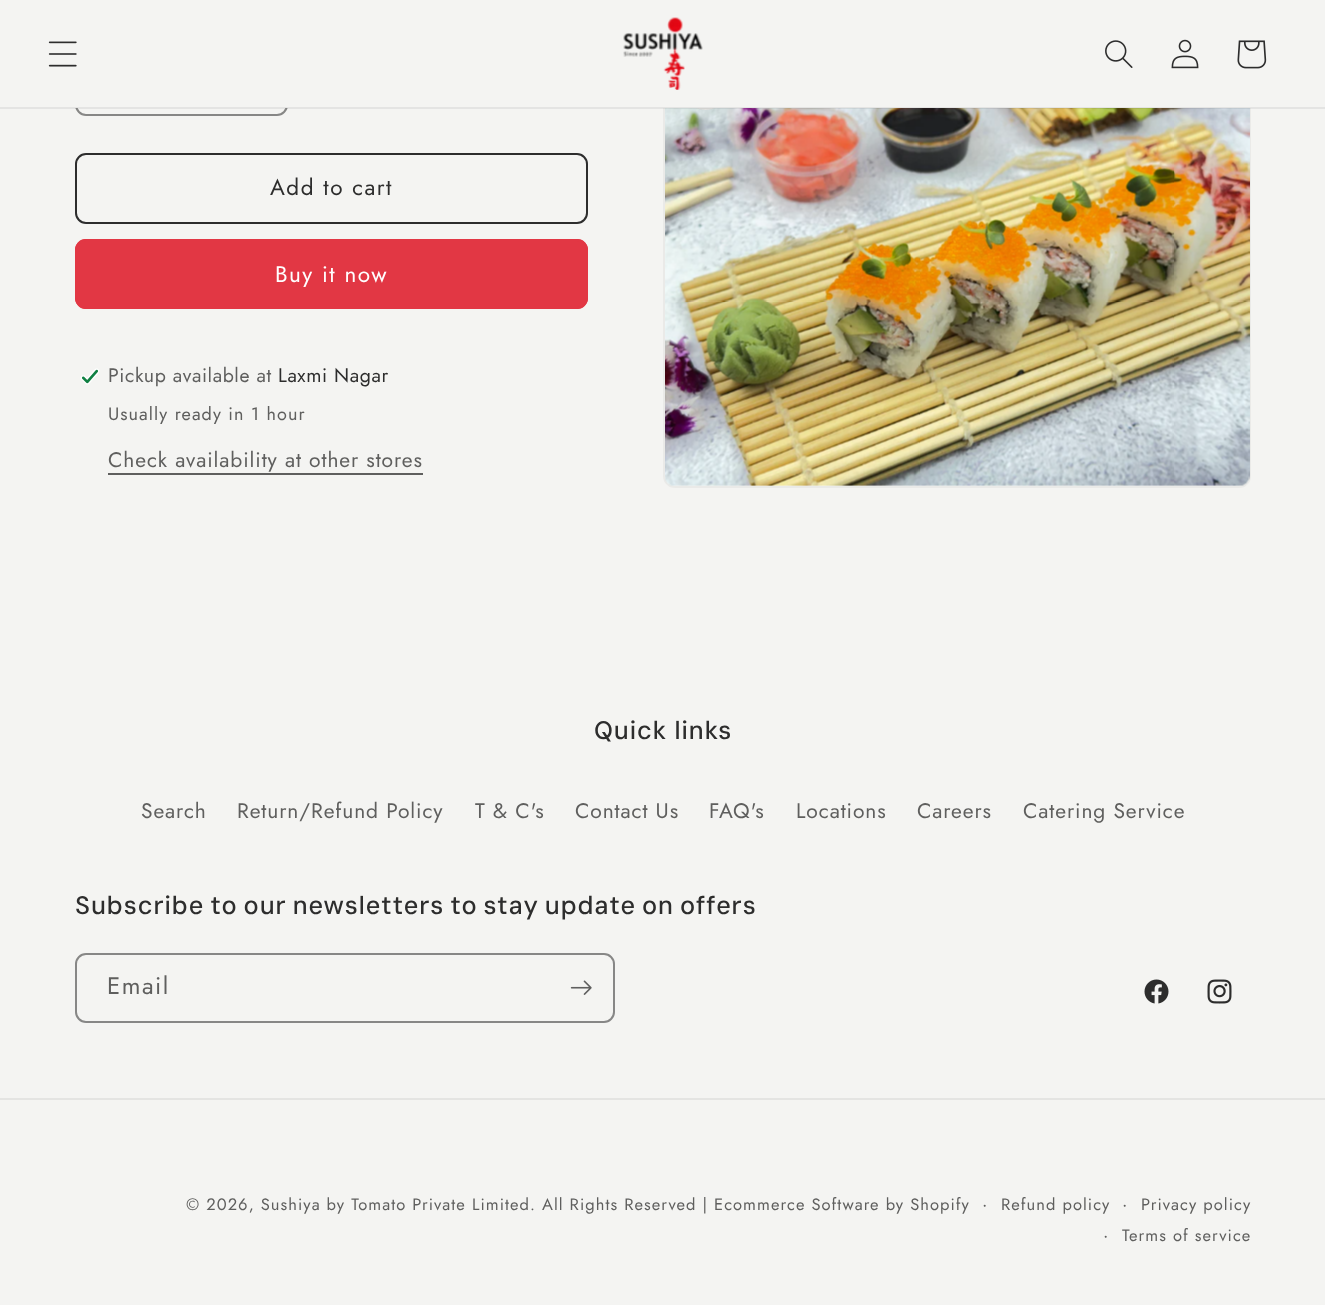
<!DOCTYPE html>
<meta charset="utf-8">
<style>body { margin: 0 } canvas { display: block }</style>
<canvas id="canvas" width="1325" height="1305"></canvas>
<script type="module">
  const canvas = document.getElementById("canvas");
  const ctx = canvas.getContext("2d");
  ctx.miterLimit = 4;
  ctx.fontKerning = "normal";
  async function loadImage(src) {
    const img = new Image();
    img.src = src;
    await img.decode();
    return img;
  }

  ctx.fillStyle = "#f4f4f2";
  ctx.fillRect(0, 0, 1325, 1305);
  ctx.beginPath();
  ctx.roundRect(76, 46, 211, 69, 10);
  ctx.strokeStyle = "#878786";
  ctx.lineWidth = 2;
  ctx.stroke();
  ctx.beginPath();
  ctx.roundRect(664, 46, 586, 441, 11);
  ctx.strokeStyle = "#eaeae8";
  ctx.stroke();
  ctx.drawImage(await loadImage("img7.png"), 665, 108, 585, 378);
  ctx.beginPath();
  ctx.arc(705.5, 87.5, 22.5, 0, Math.PI * 2);
  ctx.fill();
  ctx.beginPath();
  ctx.arc(705.5, 87.5, 21.5, 0, Math.PI * 2);
  ctx.strokeStyle = "rgba(45, 45, 45, 0.1)";
  ctx.stroke();
  ctx.fillRect(75, 45, 1176, 63);
  ctx.fillStyle = "rgba(45, 45, 45, 0.08)";
  ctx.fillRect(0, 107, 1325, 2);
  ctx.drawImage(await loadImage("img1.png"), 48, 41, 29, 26);
  ctx.drawImage(await loadImage("img2.png"), 623, 17, 80, 73);
  ctx.drawImage(await loadImage("img3.png"), 1105, 40, 28, 28);
  ctx.drawImage(await loadImage("img4.png"), 1171, 39, 28, 30);
  ctx.drawImage(await loadImage("img5.png"), 1237, 40, 30, 29);
  ctx.beginPath();
  ctx.roundRect(76, 154, 511, 69, 10);
  ctx.strokeStyle = "#2d2d2d";
  ctx.stroke();
  ctx.letterSpacing = "1.5px";
  ctx.font = "22.5px Jost";
  ctx.fillStyle = "#2d2d2d";
  ctx.fillText("Add to cart", 270, 195);
  ctx.fillStyle = "#e23744";
  ctx.beginPath();
  ctx.roundRect(75, 239, 513, 70, 11);
  ctx.fill();
  ctx.beginPath();
  ctx.roundRect(76, 240, 511, 68, 10);
  ctx.strokeStyle = "#e23744";
  ctx.stroke();
  ctx.fillStyle = "#ffffff";
  ctx.fillText("Buy it now", 275, 282);
  ctx.drawImage(await loadImage("img6.png"), 80, 368, 20, 17);
  ctx.letterSpacing = "0.6px";
  ctx.font = "19.5px Jost";
  ctx.fillStyle = "#5f5f5e";
  ctx.fillText("Pickup available at", 108, 382);
  ctx.fillStyle = "#2d2d2d";
  ctx.fillText("Laxmi Nagar", 278, 382);
  ctx.letterSpacing = "1.05px";
  ctx.font = "18px Jost";
  ctx.fillStyle = "#5f5f5e";
  ctx.fillText("Usually ready in 1 hour", 108, 420);
  ctx.letterSpacing = "0.9px";
  ctx.font = "21px Jost";
  ctx.fillText("Check availability at other stores", 108, 467);
  ctx.fillRect(108, 473, 315, 2);
  ctx.letterSpacing = "0.95px";
  ctx.font = "500 25.2px DM Sans";
  ctx.fillStyle = "#2d2d2d";
  ctx.fillText("Quick links", 594, 739);
  ctx.letterSpacing = "0.9px";
  ctx.font = "21px Jost";
  ctx.fillStyle = "#5f5f5e";
  ctx.fillText("Search", 141, 818);
  ctx.fillText("Return/Refund Policy", 237, 818);
  ctx.fillText("T & C's", 475, 818);
  ctx.fillText("Contact Us", 575, 818);
  ctx.fillText("FAQ's", 709, 818);
  ctx.fillText("Locations", 796, 818);
  ctx.fillText("Careers", 917, 818);
  ctx.fillText("Catering Service", 1023, 818);
  ctx.letterSpacing = "0.95px";
  ctx.wordSpacing = "-1.5px";
  ctx.font = "500 25.2px DM Sans";
  ctx.fillStyle = "#2d2d2d";
  ctx.fillText("Subscribe to our newsletters to stay update on offers", 75, 914);
  ctx.beginPath();
  ctx.roundRect(76, 954, 538, 68, 10);
  ctx.strokeStyle = "#878786";
  ctx.stroke();
  ctx.letterSpacing = "1.5px";
  ctx.wordSpacing = "0px";
  ctx.font = "24px Jost";
  ctx.fillStyle = "#5f5f5e";
  ctx.fillText("Email", 107, 994);
  ctx.drawImage(await loadImage("img8.png"), 570, 980, 22, 15);
  ctx.drawImage(await loadImage("img9.png"), 1144, 979, 25, 25);
  ctx.drawImage(await loadImage("img10.png"), 1207, 979, 25, 25);
  ctx.fillStyle = "#e4e4e2";
  ctx.fillRect(0, 1098, 1325, 2);
  ctx.letterSpacing = "1.05px";
  ctx.font = "16.5px Jost";
  ctx.fillStyle = "#5f5f5e";
  ctx.fillText("© 2026, Sushiya by Tomato Private Limited. All Rights Reserved |", 186, 1210);
  ctx.fillText("Ecommerce Software by Shopify", 714, 1210);
  ctx.font = "18px Jost";
  ctx.fillText("·", 982, 1210);
  ctx.font = "16.5px Jost";
  ctx.fillText("Refund policy", 1001, 1210);
  ctx.font = "18px Jost";
  ctx.fillText("·", 1122, 1210);
  ctx.font = "16.5px Jost";
  ctx.fillText("Privacy policy", 1141, 1210);
  ctx.font = "18px Jost";
  ctx.fillText("·", 1103, 1241);
  ctx.font = "16.5px Jost";
  ctx.fillText("Terms of service", 1122, 1241);
</script>
